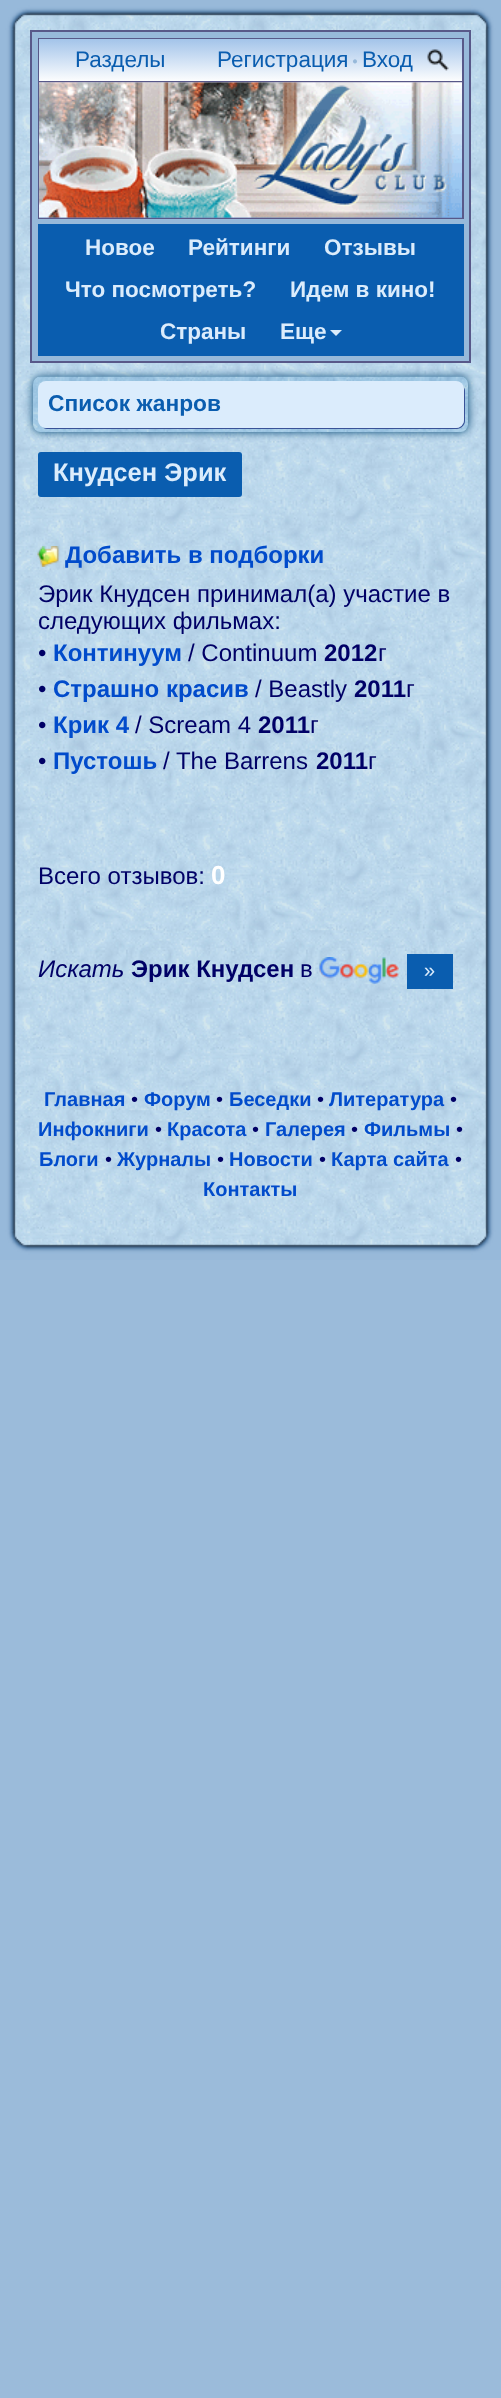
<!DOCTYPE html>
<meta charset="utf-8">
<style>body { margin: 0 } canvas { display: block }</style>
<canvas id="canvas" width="501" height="2398"></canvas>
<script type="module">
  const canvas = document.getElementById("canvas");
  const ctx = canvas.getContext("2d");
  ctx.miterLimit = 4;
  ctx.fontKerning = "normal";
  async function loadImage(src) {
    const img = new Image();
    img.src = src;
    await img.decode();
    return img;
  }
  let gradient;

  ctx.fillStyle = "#9bbbda";
  ctx.fillRect(0, 0, 501, 2398);
  ctx.drawImage(await loadImage("img1.png"), 14, 14, 473, 1232);
  ctx.drawImage(await loadImage("img2.png"), 0, 0, 501, 1260);
  ctx.fillStyle = "#97b9da";
  ctx.beginPath();
  ctx.rect(31, 31, 439, 331);
  ctx.fill();
  ctx.strokeStyle = "#585889";
  ctx.lineWidth = 2;
  ctx.stroke();
  ctx.fillStyle = "#585889";
  ctx.fillRect(38, 38, 426, 181);
  gradient = ctx.createLinearGradient(251, 39, 251, 81);
  gradient.addColorStop(0, "#a3c4ea");
  gradient.addColorStop(1, "#fcfdfe");
  ctx.fillStyle = gradient;
  ctx.fillRect(39, 39, 423, 42);
  ctx.font = "22.5px Liberation Sans";
  ctx.fillStyle = "#0a5daf";
  ctx.fillText("Разделы", 75, 67);
  ctx.fillText("Регистрация", 217, 67);
  ctx.font = "17px Liberation Serif";
  ctx.fillStyle = "#97b9da";
  ctx.fillText("•", 352, 67);
  ctx.font = "22.5px Liberation Sans";
  ctx.fillStyle = "#0a5daf";
  ctx.fillText("Вход", 362, 67);
  ctx.drawImage(await loadImage("img3.png"), 427, 49, 22, 22);
  ctx.drawImage(await loadImage("img4.png"), 39, 82, 423, 136);
  ctx.drawImage(await loadImage("img5.png"), 39, 82, 423, 136);
  ctx.fillRect(38, 224, 426, 132);
  ctx.font = "bold 22.5px Liberation Sans";
  ctx.fillStyle = "#dbecfc";
  ctx.fillText("Новое", 85, 255);
  ctx.fillText("Рейтинги", 188, 255);
  ctx.fillText("Отзывы", 324, 255);
  ctx.fillText("Что посмотреть?", 65, 297);
  ctx.fillText("Идем в кино!", 290, 297);
  ctx.fillText("Страны", 160, 339);
  ctx.fillText("Еще", 280, 339);
  ctx.beginPath();
  ctx.moveTo(330, 330);
  ctx.lineTo(342, 330);
  ctx.lineTo(336, 336);
  ctx.closePath();
  ctx.fill();
  ctx.fillStyle = "#034775";
  ctx.filter = "blur(4px)";
  ctx.beginPath();
  ctx.roundRect(33, 377, 435, 55, 8);
  ctx.fill();
  ctx.filter = "none";
  ctx.drawImage(await loadImage("img6.png"), 33, 376, 435, 56);
  ctx.fillStyle = "#395298";
  ctx.beginPath();
  ctx.moveTo(41, 426);
  ctx.bezierCurveTo(43, 428, 45, 429, 47, 429);
  ctx.lineTo(457, 429);
  ctx.bezierCurveTo(461, 429, 465, 425, 465, 421);
  ctx.lineTo(465, 391);
  ctx.bezierCurveTo(465, 389, 464, 387, 463, 386);
  ctx.lineTo(464, 388);
  ctx.lineTo(464, 420);
  ctx.bezierCurveTo(464, 424, 460, 428, 456, 428);
  ctx.lineTo(45, 428);
  ctx.bezierCurveTo(44, 428, 42, 427, 41, 426);
  ctx.closePath();
  ctx.fill();
  ctx.fillStyle = "#dbecfc";
  ctx.beginPath();
  ctx.roundRect(38, 381, 426, 47, 8);
  ctx.fill();
  ctx.font = "bold 22.75px Liberation Sans";
  ctx.fillStyle = "#0a5daf";
  ctx.fillText("Список жанров", 48, 411);
  ctx.beginPath();
  ctx.roundRect(38, 452, 204, 45, 3);
  ctx.fill();
  ctx.font = "bold 25.5px Liberation Sans";
  ctx.fillStyle = "#dbecfc";
  ctx.fillText("Кнудсен Эрик", 53, 481);
  ctx.drawImage(await loadImage("img7.png"), 37, 546, 22, 21);
  ctx.font = "bold 24px Liberation Sans";
  ctx.fillStyle = "#014bcb";
  ctx.fillText("Добавить в подборки", 65, 563);
  ctx.font = "24px Liberation Sans";
  ctx.fillStyle = "#000066";
  ctx.fillText("Эрик Кнудсен принимал(а) участие в", 38, 602);
  ctx.fillText("следующих фильмах:", 38, 629);
  ctx.fillText("•", 38, 661);
  ctx.font = "bold 24px Liberation Sans";
  ctx.fillStyle = "#014bcb";
  ctx.fillText("Континуум", 53, 661);
  ctx.font = "24px Liberation Sans";
  ctx.fillStyle = "#000066";
  ctx.fillText("/ Continuum", 188, 661);
  ctx.font = "bold 24px Liberation Sans";
  ctx.fillText("2012", 324, 661);
  ctx.font = "24px Liberation Sans";
  ctx.fillText("г", 378, 661);
  ctx.fillText("•", 38, 697);
  ctx.font = "bold 24px Liberation Sans";
  ctx.fillStyle = "#014bcb";
  ctx.fillText("Страшно красив", 53, 697);
  ctx.font = "24px Liberation Sans";
  ctx.fillStyle = "#000066";
  ctx.fillText("/ Beastly", 255, 697);
  ctx.font = "bold 24px Liberation Sans";
  ctx.fillText("2011", 354, 697);
  ctx.font = "24px Liberation Sans";
  ctx.fillText("г", 406, 697);
  ctx.fillText("•", 38, 733);
  ctx.font = "bold 24px Liberation Sans";
  ctx.fillStyle = "#014bcb";
  ctx.fillText("Крик 4", 53, 733);
  ctx.font = "24px Liberation Sans";
  ctx.fillStyle = "#000066";
  ctx.fillText("/ Scream 4", 135, 733);
  ctx.font = "bold 24px Liberation Sans";
  ctx.fillText("2011", 258, 733);
  ctx.font = "24px Liberation Sans";
  ctx.fillText("г", 310, 733);
  ctx.fillText("•", 38, 769);
  ctx.font = "bold 24px Liberation Sans";
  ctx.fillStyle = "#014bcb";
  ctx.fillText("Пустошь", 53, 769);
  ctx.font = "24px Liberation Sans";
  ctx.fillStyle = "#000066";
  ctx.fillText("/ The Barrens", 163, 769);
  ctx.font = "bold 24px Liberation Sans";
  ctx.fillText("2011", 316, 769);
  ctx.font = "24px Liberation Sans";
  ctx.fillText("г", 368, 769);
  ctx.fillText("Всего отзывов:", 38, 884);
  ctx.font = "bold 26px Liberation Sans";
  ctx.fillStyle = "#ffffff";
  ctx.fillText("0", 211, 884);
  ctx.font = "italic 24px Liberation Sans";
  ctx.fillStyle = "#000066";
  ctx.fillText("Искать", 38, 977);
  ctx.font = "bold 24px Liberation Sans";
  ctx.fillText("Эрик Кнудсен", 131, 977);
  ctx.font = "24px Liberation Sans";
  ctx.fillText("в", 300, 977);
  ctx.drawImage(await loadImage("img8.png"), 319, 957, 80, 27);
  ctx.fillStyle = "#0a5daf";
  ctx.fillRect(407, 954, 46, 35);
  ctx.font = "20px Liberation Sans";
  ctx.fillStyle = "#dbecfc";
  ctx.fillText("»", 424, 977);
  ctx.font = "bold 20px Liberation Sans";
  ctx.fillStyle = "#014bcb";
  ctx.fillText("Главная", 44, 1106);
  ctx.font = "20px Liberation Sans";
  ctx.fillStyle = "#000066";
  ctx.fillText("•", 131, 1106);
  ctx.font = "bold 20px Liberation Sans";
  ctx.fillStyle = "#014bcb";
  ctx.fillText("Форум", 144, 1106);
  ctx.font = "20px Liberation Sans";
  ctx.fillStyle = "#000066";
  ctx.fillText("•", 216, 1106);
  ctx.font = "bold 20px Liberation Sans";
  ctx.fillStyle = "#014bcb";
  ctx.fillText("Беседки", 229, 1106);
  ctx.font = "20px Liberation Sans";
  ctx.fillStyle = "#000066";
  ctx.fillText("•", 317, 1106);
  ctx.font = "bold 20px Liberation Sans";
  ctx.fillStyle = "#014bcb";
  ctx.fillText("Литература", 329, 1106);
  ctx.font = "20px Liberation Sans";
  ctx.fillStyle = "#000066";
  ctx.fillText("•", 450, 1106);
  ctx.font = "bold 20px Liberation Sans";
  ctx.fillStyle = "#014bcb";
  ctx.fillText("Инфокниги", 38, 1136);
  ctx.font = "20px Liberation Sans";
  ctx.fillStyle = "#000066";
  ctx.fillText("•", 155, 1136);
  ctx.font = "bold 20px Liberation Sans";
  ctx.fillStyle = "#014bcb";
  ctx.fillText("Красота", 167, 1136);
  ctx.font = "20px Liberation Sans";
  ctx.fillStyle = "#000066";
  ctx.fillText("•", 252, 1136);
  ctx.font = "bold 20px Liberation Sans";
  ctx.fillStyle = "#014bcb";
  ctx.fillText("Галерея", 265, 1136);
  ctx.font = "20px Liberation Sans";
  ctx.fillStyle = "#000066";
  ctx.fillText("•", 351, 1136);
  ctx.font = "bold 20px Liberation Sans";
  ctx.fillStyle = "#014bcb";
  ctx.fillText("Фильмы", 364, 1136);
  ctx.font = "20px Liberation Sans";
  ctx.fillStyle = "#000066";
  ctx.fillText("•", 456, 1136);
  ctx.font = "bold 20px Liberation Sans";
  ctx.fillStyle = "#014bcb";
  ctx.fillText("Блоги", 39, 1166);
  ctx.font = "20px Liberation Sans";
  ctx.fillStyle = "#000066";
  ctx.fillText("•", 105, 1166);
  ctx.font = "bold 20px Liberation Sans";
  ctx.fillStyle = "#014bcb";
  ctx.fillText("Журналы", 117, 1166);
  ctx.font = "20px Liberation Sans";
  ctx.fillStyle = "#000066";
  ctx.fillText("•", 217, 1166);
  ctx.font = "bold 20px Liberation Sans";
  ctx.fillStyle = "#014bcb";
  ctx.fillText("Новости", 229, 1166);
  ctx.font = "20px Liberation Sans";
  ctx.fillStyle = "#000066";
  ctx.fillText("•", 319, 1166);
  ctx.font = "bold 20px Liberation Sans";
  ctx.fillStyle = "#014bcb";
  ctx.fillText("Карта сайта", 331, 1166);
  ctx.font = "20px Liberation Sans";
  ctx.fillStyle = "#000066";
  ctx.fillText("•", 455, 1166);
  ctx.font = "bold 20px Liberation Sans";
  ctx.fillStyle = "#014bcb";
  ctx.fillText("Контакты", 203, 1196);
</script>
